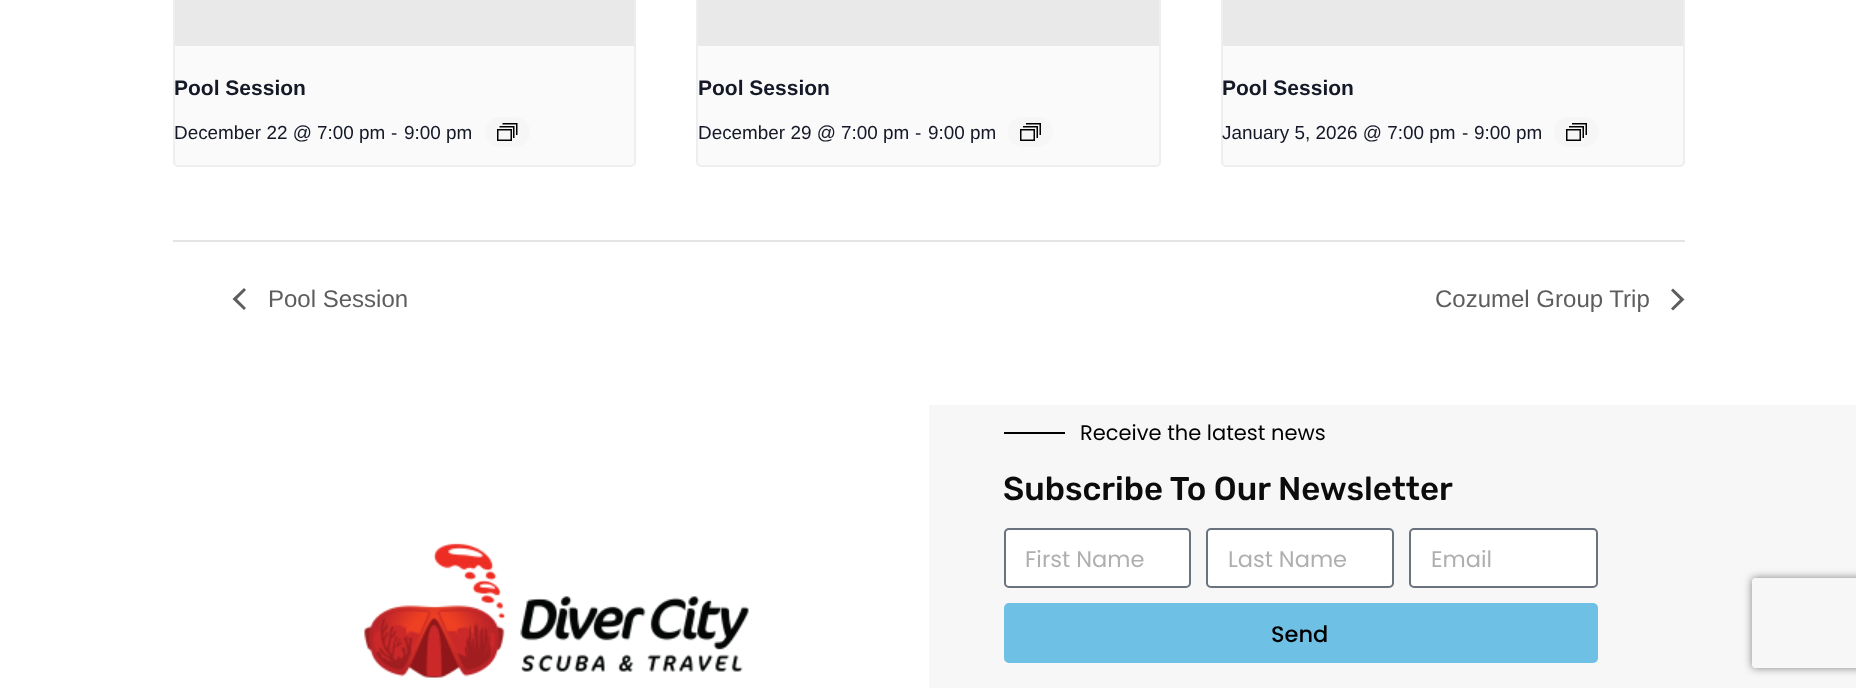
<!DOCTYPE html>
<meta charset="utf-8">
<style>body { margin: 0 } canvas { display: block }</style>
<canvas id="canvas" width="1856" height="688"></canvas>
<script type="module">
  const canvas = document.getElementById("canvas");
  const ctx = canvas.getContext("2d");
  ctx.miterLimit = 4;
  ctx.fontKerning = "normal";
  async function loadImage(src) {
    const img = new Image();
    img.src = src;
    await img.decode();
    return img;
  }

  ctx.fillStyle = "#ffffff";
  ctx.fillRect(0, 0, 1856, 688);
  ctx.fillStyle = "#fafafa";
  ctx.beginPath();
  ctx.roundRect(174, -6, 461, 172, 4);
  ctx.fill();
  ctx.strokeStyle = "#eeeeee";
  ctx.lineWidth = 2;
  ctx.stroke();
  ctx.fillStyle = "#e9e9e9";
  ctx.fillRect(175, 0, 459, 46);
  ctx.font = "bold 21px Liberation Sans";
  ctx.fillStyle = "#141827";
  ctx.fillText("Pool Session", 174, 95);
  ctx.font = "18.9px Liberation Sans";
  ctx.fillText("December 22 @ 7:00 pm", 174, 139);
  ctx.fillText("-", 391, 139);
  ctx.fillText("9:00 pm", 404, 139);
  ctx.fillStyle = "#f7f6f6";
  ctx.beginPath();
  ctx.roundRect(485, 117, 45, 30, 15);
  ctx.fill();
  ctx.drawImage(await loadImage("img1.png"), 497, 123, 21, 18);
  ctx.fillStyle = "#fafafa";
  ctx.beginPath();
  ctx.roundRect(697, -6, 463, 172, 4);
  ctx.fill();
  ctx.stroke();
  ctx.fillStyle = "#e9e9e9";
  ctx.fillRect(698, 0, 461, 46);
  ctx.font = "bold 21px Liberation Sans";
  ctx.fillStyle = "#141827";
  ctx.fillText("Pool Session", 698, 95);
  ctx.font = "18.9px Liberation Sans";
  ctx.fillText("December 29 @ 7:00 pm", 698, 139);
  ctx.fillText("-", 915, 139);
  ctx.fillText("9:00 pm", 928, 139);
  ctx.fillStyle = "#f7f6f6";
  ctx.beginPath();
  ctx.roundRect(1008, 117, 45, 30, 15);
  ctx.fill();
  ctx.drawImage(await loadImage("img2.png"), 1020, 123, 21, 18);
  ctx.fillStyle = "#fafafa";
  ctx.beginPath();
  ctx.roundRect(1222, -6, 462, 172, 4);
  ctx.fill();
  ctx.stroke();
  ctx.fillStyle = "#e9e9e9";
  ctx.fillRect(1223, 0, 460, 46);
  ctx.font = "bold 21px Liberation Sans";
  ctx.fillStyle = "#141827";
  ctx.fillText("Pool Session", 1222, 95);
  ctx.font = "18.9px Liberation Sans";
  ctx.fillText("January 5, 2026 @ 7:00 pm", 1222, 139);
  ctx.fillText("-", 1462, 139);
  ctx.fillText("9:00 pm", 1474, 139);
  ctx.fillStyle = "#f7f6f6";
  ctx.beginPath();
  ctx.roundRect(1554, 117, 45, 30, 15);
  ctx.fill();
  ctx.drawImage(await loadImage("img2.png"), 1566, 123, 21, 18);
  ctx.fillStyle = "#e4e4e4";
  ctx.fillRect(173, 240, 1512, 2);
  ctx.fillStyle = "#5d5d5d";
  ctx.beginPath();
  ctx.moveTo(246, 308);
  ctx.lineTo(244, 310);
  ctx.lineTo(232.5, 299);
  ctx.lineTo(244, 288);
  ctx.lineTo(246, 290);
  ctx.lineTo(237, 299);
  ctx.closePath();
  ctx.fill();
  ctx.font = "24px Liberation Sans";
  ctx.fillText("Pool Session", 268, 307);
  ctx.fillText("Cozumel Group Trip", 1435, 307);
  ctx.beginPath();
  ctx.moveTo(1671, 290.5);
  ctx.lineTo(1673, 288.5);
  ctx.lineTo(1684.5, 299.5);
  ctx.lineTo(1673, 310.5);
  ctx.lineTo(1671, 308.5);
  ctx.lineTo(1680, 299.5);
  ctx.closePath();
  ctx.fill();
  ctx.drawImage(await loadImage("img3.png"), 364, 543, 385, 135);
  ctx.fillStyle = "#f7f7f7";
  ctx.fillRect(929, 405, 927, 283);
  ctx.fillStyle = "#000000";
  ctx.fillRect(1004, 432, 61, 2);
  ctx.font = "21px Poppins";
  ctx.fillText("Receive the latest news", 1080, 440);
  ctx.font = "500 33px Rubik";
  ctx.fillStyle = "#0c0c0c";
  ctx.fillText("Subscribe To Our Newsletter", 1003, 500);
  ctx.fillStyle = "#ffffff";
  ctx.beginPath();
  ctx.roundRect(1005, 529, 185, 58, 4);
  ctx.fill();
  ctx.strokeStyle = "#69727d";
  ctx.stroke();
  ctx.font = "22.5px Poppins";
  ctx.fillStyle = "#afafaf";
  ctx.fillText("First Name", 1025, 567);
  ctx.fillStyle = "#ffffff";
  ctx.beginPath();
  ctx.roundRect(1207, 529, 186, 58, 4);
  ctx.fill();
  ctx.stroke();
  ctx.fillStyle = "#afafaf";
  ctx.fillText("Last Name", 1228, 567);
  ctx.fillStyle = "#ffffff";
  ctx.beginPath();
  ctx.roundRect(1410, 529, 187, 58, 4);
  ctx.fill();
  ctx.stroke();
  ctx.fillStyle = "#afafaf";
  ctx.fillText("Email", 1431, 567);
  ctx.fillStyle = "#6ec1e4";
  ctx.beginPath();
  ctx.roundRect(1004, 603, 594, 60, 5);
  ctx.fill();
  ctx.font = "500 22.5px Poppins";
  ctx.fillStyle = "#000000";
  ctx.fillText("Send", 1271, 642);
  ctx.save();
  ctx.beginPath();
  ctx.moveTo(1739, 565);
  ctx.lineTo(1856, 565);
  ctx.lineTo(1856, 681);
  ctx.lineTo(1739, 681);
  ctx.closePath();
  ctx.moveTo(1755, 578);
  ctx.lineTo(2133, 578);
  ctx.bezierCurveTo(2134.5, 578, 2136, 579.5, 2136, 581);
  ctx.lineTo(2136, 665);
  ctx.bezierCurveTo(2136, 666.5, 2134.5, 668, 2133, 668);
  ctx.lineTo(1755, 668);
  ctx.bezierCurveTo(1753.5, 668, 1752, 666.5, 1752, 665);
  ctx.lineTo(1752, 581);
  ctx.bezierCurveTo(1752, 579.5, 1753.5, 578, 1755, 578);
  ctx.closePath();
  ctx.clip("evenodd");
  ctx.fillStyle = "#808080";
  ctx.filter = "blur(4px)";
  ctx.beginPath();
  ctx.roundRect(1752, 578, 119, 90, 3);
  ctx.fill();
  ctx.filter = "none";
  ctx.restore();
</script>
